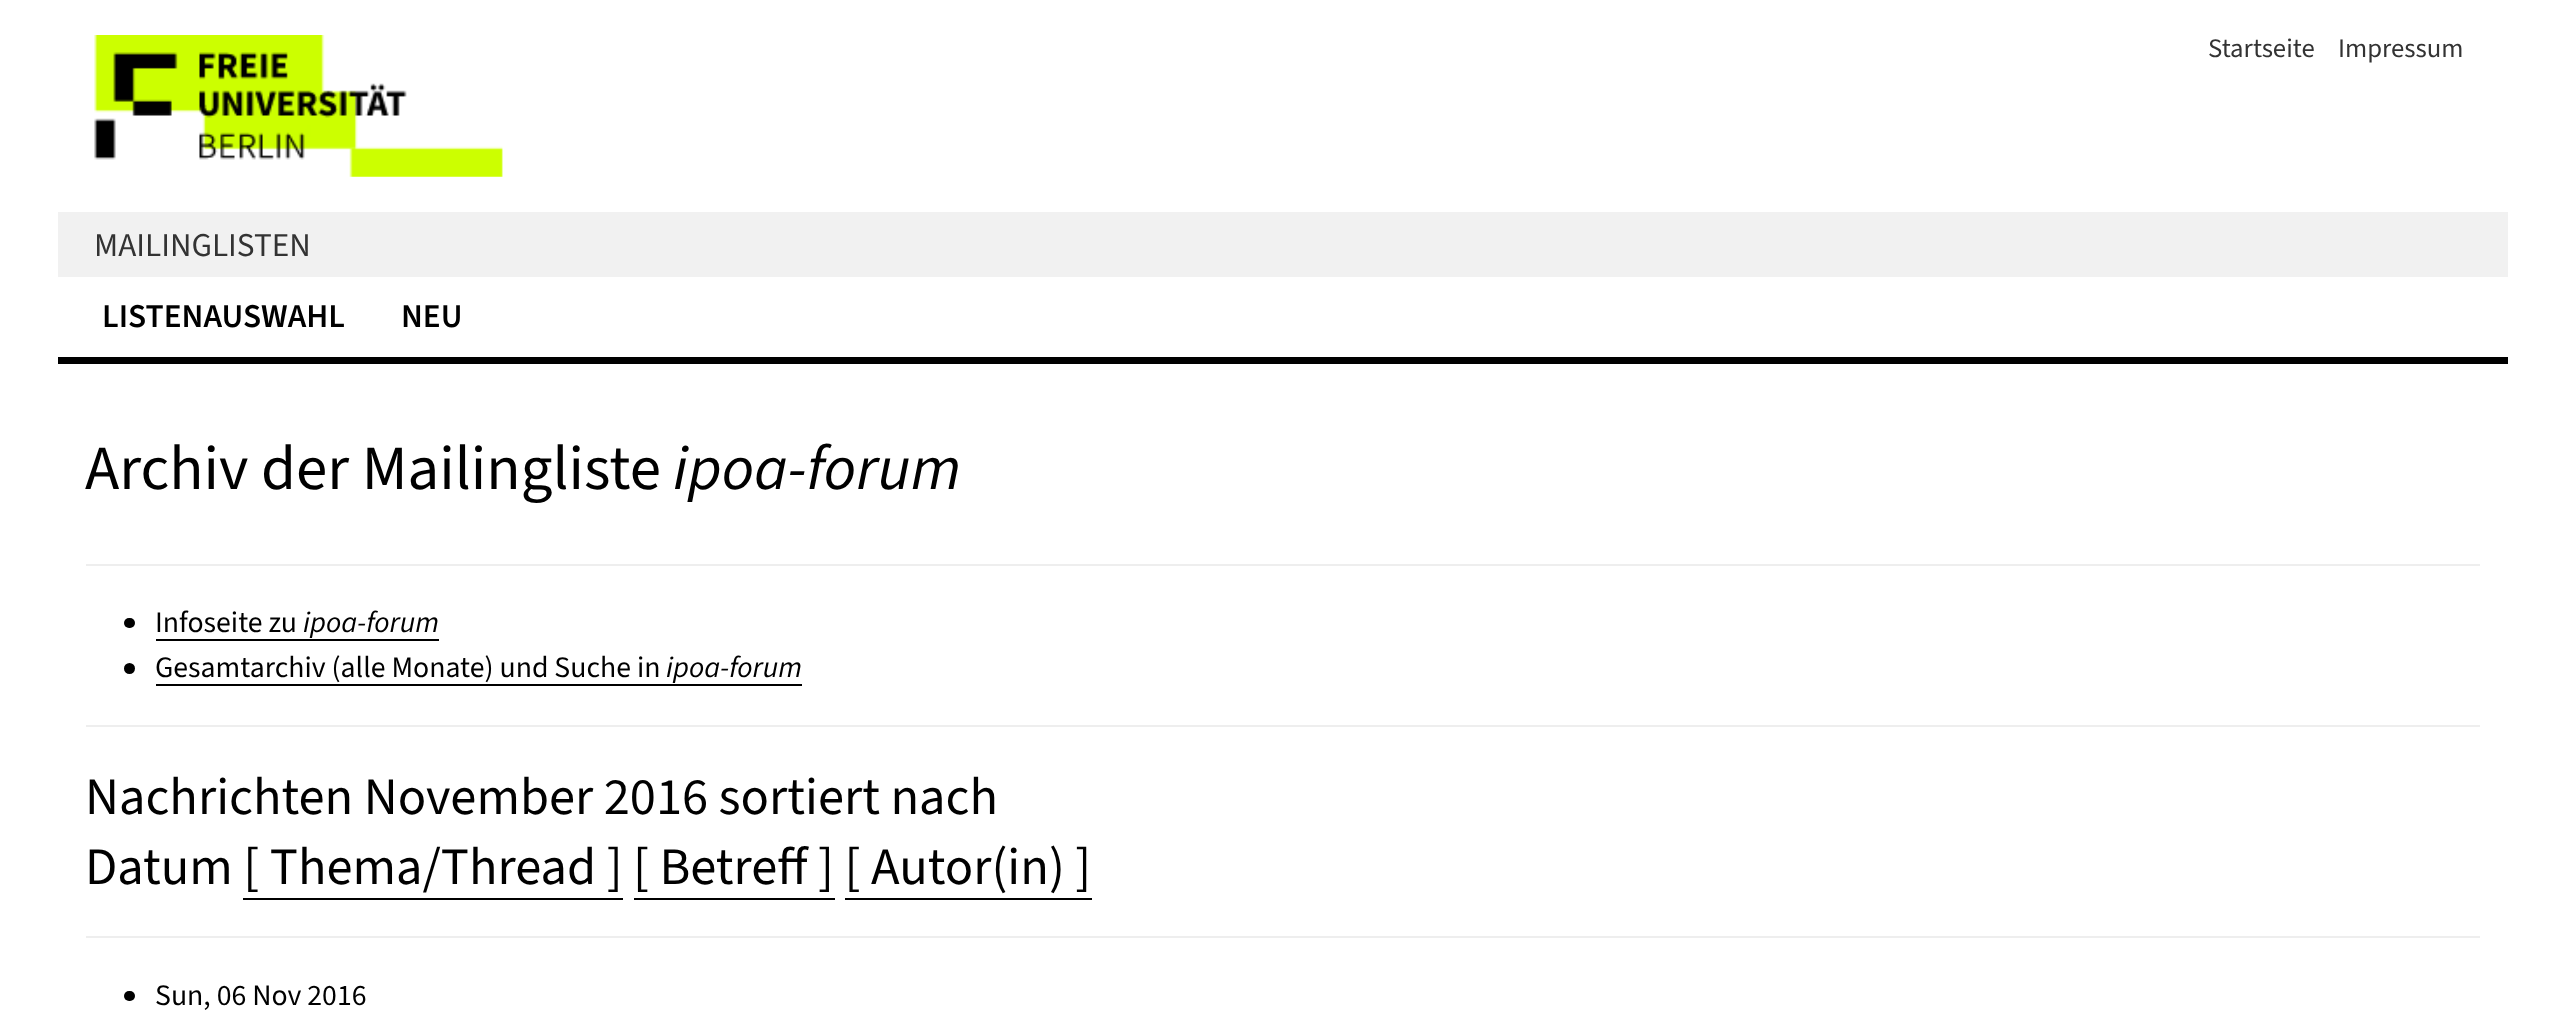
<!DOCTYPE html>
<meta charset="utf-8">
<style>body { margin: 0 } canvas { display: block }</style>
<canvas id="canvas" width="2563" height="1025"></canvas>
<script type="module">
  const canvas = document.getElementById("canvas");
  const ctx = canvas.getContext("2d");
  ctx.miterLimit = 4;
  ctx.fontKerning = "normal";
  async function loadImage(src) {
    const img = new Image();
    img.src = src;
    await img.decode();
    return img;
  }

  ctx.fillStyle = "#ffffff";
  ctx.fillRect(0, 0, 2563, 1025);
  ctx.drawImage(await loadImage("img1.png"), 94, 35, 409, 142);
  ctx.font = "26.75px 'Source Sans 3'";
  ctx.fillStyle = "#333333";
  ctx.fillText("Startseite", 2208, 57);
  ctx.fillText("Impressum", 2338, 57);
  ctx.fillStyle = "#f1f1f1";
  ctx.fillRect(58, 212, 2450, 65);
  ctx.font = "33.25px 'Source Sans 3'";
  ctx.fillStyle = "#333333";
  ctx.fillText("MAILINGLISTEN", 94, 256);
  ctx.fillStyle = "#000000";
  ctx.fillRect(58, 357, 2450, 7);
  ctx.font = "600 33.25px 'Source Sans 3'";
  ctx.fillText("LISTENAUSWAHL", 102, 327);
  ctx.fillText("NEU", 401, 327);
  ctx.font = "63px 'Source Sans 3'";
  ctx.fillText("Archiv der Mailingliste", 85, 489);
  ctx.font = "italic 63px 'Source Sans 3'";
  ctx.fillText("ipoa-forum", 673, 489);
  ctx.fillStyle = "#eeeeee";
  ctx.fillRect(86, 564, 2394, 2);
  ctx.fillStyle = "#000000";
  ctx.beginPath();
  ctx.roundRect(124, 618, 11, 10, 5);
  ctx.fill();
  ctx.font = "29.75px 'Source Sans 3'";
  ctx.fillText("Infoseite zu", 155, 632);
  ctx.font = "italic 29.75px 'Source Sans 3'";
  ctx.fillText("ipoa-forum", 303, 632);
  ctx.fillRect(156, 639, 283, 2);
  ctx.beginPath();
  ctx.arc(129.5, 668.5, 5.5, 0, Math.PI * 2);
  ctx.fill();
  ctx.font = "29.75px 'Source Sans 3'";
  ctx.fillText("Gesamtarchiv (alle Monate) und Suche in", 155, 677);
  ctx.font = "italic 29.75px 'Source Sans 3'";
  ctx.fillText("ipoa-forum", 666, 677);
  ctx.fillRect(156, 684, 646, 2);
  ctx.fillStyle = "#eeeeee";
  ctx.fillRect(86, 725, 2394, 2);
  ctx.font = "52.5px 'Source Sans 3'";
  ctx.fillStyle = "#000000";
  ctx.fillText("Nachrichten November 2016 sortiert nach", 85, 814);
  ctx.fillText("Datum [ Thema/Thread ] [ Betreff ] [ Autor(in) ]", 85, 884);
  ctx.fillRect(243, 898, 380, 2);
  ctx.fillRect(634, 898, 201, 2);
  ctx.fillRect(845, 898, 247, 2);
  ctx.fillStyle = "#eeeeee";
  ctx.fillRect(86, 936, 2394, 2);
  ctx.fillStyle = "#000000";
  ctx.beginPath();
  ctx.roundRect(124, 991, 11, 10, 5);
  ctx.fill();
  ctx.font = "29.75px 'Source Sans 3'";
  ctx.fillText("Sun, 06 Nov 2016", 155, 1005);
</script>
